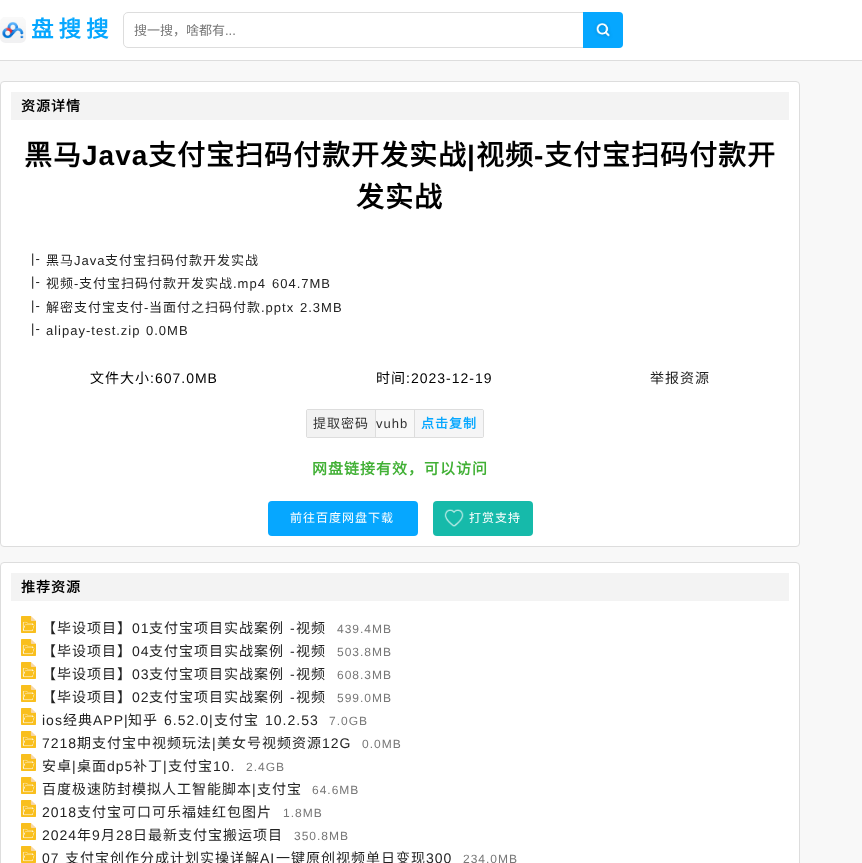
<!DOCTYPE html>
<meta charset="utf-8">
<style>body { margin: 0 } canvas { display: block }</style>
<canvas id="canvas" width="862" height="863"></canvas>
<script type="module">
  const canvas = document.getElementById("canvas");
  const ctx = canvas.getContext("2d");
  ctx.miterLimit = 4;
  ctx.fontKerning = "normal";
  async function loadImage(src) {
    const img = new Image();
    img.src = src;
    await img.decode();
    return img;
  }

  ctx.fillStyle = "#ffffff";
  ctx.fillRect(0, 0, 862, 863);
  ctx.fillStyle = "#dddddd";
  ctx.fillRect(0, 60, 862, 1);
  ctx.drawImage(await loadImage("img1.png"), 0, 17, 26, 26);
  ctx.letterSpacing = "5px";
  ctx.font = "bold 22.5px Noto Sans CJK SC";
  ctx.fillStyle = "#06a7ff";
  ctx.fillText("盘搜搜", 31, 37);
  ctx.beginPath();
  ctx.roundRect(123.5, 12.5, 499, 35, 4.5);
  ctx.strokeStyle = "#dddddd";
  ctx.stroke();
  ctx.letterSpacing = "0px";
  ctx.font = "13px Noto Sans CJK SC";
  ctx.fillStyle = "#777777";
  ctx.fillText("搜一搜，啥都有", 134, 35);
  ctx.font = "13px Liberation Sans";
  ctx.fillText("...", 225, 35);
  ctx.drawImage(await loadImage("img2.png"), 583, 12, 40, 36);
  ctx.fillStyle = "#f8f8f8";
  ctx.fillRect(0, 61, 862, 802);
  ctx.fillStyle = "#ffffff";
  ctx.beginPath();
  ctx.roundRect(0.5, 81.5, 799, 465, 3.5);
  ctx.fill();
  ctx.stroke();
  ctx.fillStyle = "#f3f3f3";
  ctx.fillRect(11, 92, 778, 28);
  ctx.letterSpacing = "1px";
  ctx.font = "bold 14px Noto Sans CJK SC";
  ctx.fillStyle = "#000000";
  ctx.fillText("资源详情", 21, 111);
  ctx.font = "bold 28px Noto Sans CJK SC";
  ctx.fillText("黑马", 24, 165);
  ctx.font = "bold 28px Liberation Sans";
  ctx.fillText("Java", 82, 165);
  ctx.font = "bold 28px Noto Sans CJK SC";
  ctx.fillText("支付宝扫码付款开发实战", 148, 165);
  ctx.font = "bold 28px Liberation Sans";
  ctx.fillText("|", 467, 165);
  ctx.font = "bold 28px Noto Sans CJK SC";
  ctx.fillText("视频", 476, 165);
  ctx.font = "bold 28px Liberation Sans";
  ctx.fillText("-", 534, 165);
  ctx.font = "bold 28px Noto Sans CJK SC";
  ctx.fillText("支付宝扫码付款开", 544, 165);
  ctx.fillText("发实战", 356, 207);
  ctx.font = "13px Liberation Sans";
  ctx.fillStyle = "#222222";
  ctx.fillText("|-", 31, 263);
  ctx.font = "13px Noto Sans CJK SC";
  ctx.fillText("黑马", 46, 265);
  ctx.font = "13px Liberation Sans";
  ctx.fillText("Java", 74, 265);
  ctx.font = "13px Noto Sans CJK SC";
  ctx.fillText("支付宝扫码付款开发实战", 105, 265);
  ctx.font = "13px Liberation Sans";
  ctx.fillText("|-", 31, 286);
  ctx.font = "13px Noto Sans CJK SC";
  ctx.fillText("视频", 46, 288);
  ctx.font = "13px Liberation Sans";
  ctx.fillText("-", 74, 288);
  ctx.font = "13px Noto Sans CJK SC";
  ctx.fillText("支付宝扫码付款开发实战", 79, 288);
  ctx.font = "13px Liberation Sans";
  ctx.fillText(".mp4", 233, 288);
  ctx.fillText("604.7MB", 272, 288);
  ctx.fillText("|-", 31, 310);
  ctx.font = "13px Noto Sans CJK SC";
  ctx.fillText("解密支付宝支付", 46, 312);
  ctx.font = "13px Liberation Sans";
  ctx.fillText("-", 144, 312);
  ctx.font = "13px Noto Sans CJK SC";
  ctx.fillText("当面付之扫码付款", 149, 312);
  ctx.font = "13px Liberation Sans";
  ctx.fillText(".pptx", 261, 312);
  ctx.fillText("2.3MB", 300, 312);
  ctx.fillText("|-", 31, 333);
  ctx.fillText("alipay-test.zip", 46, 335);
  ctx.fillText("0.0MB", 146, 335);
  ctx.font = "14px Noto Sans CJK SC";
  ctx.fillStyle = "#000000";
  ctx.fillText("文件大小", 90, 383);
  ctx.font = "14px Liberation Sans";
  ctx.fillText(":607.0MB", 150, 383);
  ctx.font = "14px Noto Sans CJK SC";
  ctx.fillText("时间", 376, 383);
  ctx.font = "14px Liberation Sans";
  ctx.fillText(":2023-12-19", 406, 383);
  ctx.font = "14px Noto Sans CJK SC";
  ctx.fillStyle = "#222222";
  ctx.fillText("举报资源", 650, 383);
  ctx.fillStyle = "#f8f8f8";
  ctx.beginPath();
  ctx.roundRect(306.5, 409.5, 177, 28, 1.5);
  ctx.fill();
  ctx.stroke();
  ctx.fillStyle = "#f2f2f2";
  ctx.fillRect(307, 410, 68, 27);
  ctx.fillStyle = "#dddddd";
  ctx.fillRect(375, 410, 1, 27);
  ctx.font = "13px Noto Sans CJK SC";
  ctx.fillStyle = "#333333";
  ctx.fillText("提取密码", 313, 428);
  ctx.font = "13px Liberation Sans";
  ctx.fillText("vuhb", 376, 428);
  ctx.fillStyle = "#f5f5f6";
  ctx.fillRect(415, 410, 68, 27);
  ctx.fillStyle = "#dddddd";
  ctx.fillRect(414, 410, 1, 27);
  ctx.font = "bold 13px Noto Sans CJK SC";
  ctx.fillStyle = "#06a7ff";
  ctx.fillText("点击复制", 421, 428);
  ctx.font = "bold 15px Noto Sans CJK SC";
  ctx.fillStyle = "#41b035";
  ctx.fillText("网盘链接有效，可以访问", 312, 474);
  ctx.fillStyle = "#06a7ff";
  ctx.beginPath();
  ctx.roundRect(268, 501, 150, 35, 4);
  ctx.fill();
  ctx.font = "12px Noto Sans CJK SC";
  ctx.fillStyle = "#ffffff";
  ctx.fillText("前往百度网盘下载", 290, 522);
  ctx.fillStyle = "#16baaa";
  ctx.beginPath();
  ctx.roundRect(433, 501, 100, 35, 4);
  ctx.fill();
  ctx.drawImage(await loadImage("img3.png"), 444, 509, 20, 18);
  ctx.fillStyle = "#ffffff";
  ctx.fillText("打赏支持", 469, 522);
  ctx.beginPath();
  ctx.roundRect(0.5, 562.5, 799, 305, 3.5);
  ctx.fill();
  ctx.stroke();
  ctx.fillStyle = "#f3f3f3";
  ctx.fillRect(11, 573, 778, 28);
  ctx.font = "bold 14px Noto Sans CJK SC";
  ctx.fillStyle = "#000000";
  ctx.fillText("推荐资源", 21, 592);
  ctx.drawImage(await loadImage("img4.png"), 21, 616, 15, 17);
  ctx.font = "14px Noto Sans CJK SC";
  ctx.fillStyle = "#222222";
  ctx.fillText("【毕设项目】", 42, 633);
  ctx.font = "14px Liberation Sans";
  ctx.fillText("01", 132, 633);
  ctx.font = "14px Noto Sans CJK SC";
  ctx.fillText("支付宝项目实战案例", 149, 633);
  ctx.font = "14px Liberation Sans";
  ctx.fillText("-", 290, 633);
  ctx.font = "14px Noto Sans CJK SC";
  ctx.fillText("视频", 296, 633);
  ctx.font = "12px Liberation Sans";
  ctx.fillStyle = "#777777";
  ctx.fillText("439.4MB", 337, 633);
  ctx.drawImage(await loadImage("img5.png"), 21, 639, 15, 17);
  ctx.font = "14px Noto Sans CJK SC";
  ctx.fillStyle = "#222222";
  ctx.fillText("【毕设项目】", 42, 656);
  ctx.font = "14px Liberation Sans";
  ctx.fillText("04", 132, 656);
  ctx.font = "14px Noto Sans CJK SC";
  ctx.fillText("支付宝项目实战案例", 149, 656);
  ctx.font = "14px Liberation Sans";
  ctx.fillText("-", 290, 656);
  ctx.font = "14px Noto Sans CJK SC";
  ctx.fillText("视频", 296, 656);
  ctx.font = "12px Liberation Sans";
  ctx.fillStyle = "#777777";
  ctx.fillText("503.8MB", 337, 656);
  ctx.drawImage(await loadImage("img4.png"), 21, 662, 15, 17);
  ctx.font = "14px Noto Sans CJK SC";
  ctx.fillStyle = "#222222";
  ctx.fillText("【毕设项目】", 42, 679);
  ctx.font = "14px Liberation Sans";
  ctx.fillText("03", 132, 679);
  ctx.font = "14px Noto Sans CJK SC";
  ctx.fillText("支付宝项目实战案例", 149, 679);
  ctx.font = "14px Liberation Sans";
  ctx.fillText("-", 290, 679);
  ctx.font = "14px Noto Sans CJK SC";
  ctx.fillText("视频", 296, 679);
  ctx.font = "12px Liberation Sans";
  ctx.fillStyle = "#777777";
  ctx.fillText("608.3MB", 337, 679);
  ctx.drawImage(await loadImage("img4.png"), 21, 685, 15, 17);
  ctx.font = "14px Noto Sans CJK SC";
  ctx.fillStyle = "#222222";
  ctx.fillText("【毕设项目】", 42, 702);
  ctx.font = "14px Liberation Sans";
  ctx.fillText("02", 132, 702);
  ctx.font = "14px Noto Sans CJK SC";
  ctx.fillText("支付宝项目实战案例", 149, 702);
  ctx.font = "14px Liberation Sans";
  ctx.fillText("-", 290, 702);
  ctx.font = "14px Noto Sans CJK SC";
  ctx.fillText("视频", 296, 702);
  ctx.font = "12px Liberation Sans";
  ctx.fillStyle = "#777777";
  ctx.fillText("599.0MB", 337, 702);
  ctx.drawImage(await loadImage("img4.png"), 21, 708, 15, 17);
  ctx.font = "14px Liberation Sans";
  ctx.fillStyle = "#222222";
  ctx.fillText("ios", 42, 725);
  ctx.font = "14px Noto Sans CJK SC";
  ctx.fillText("经典", 63, 725);
  ctx.font = "14px Liberation Sans";
  ctx.fillText("APP|", 93, 725);
  ctx.font = "14px Noto Sans CJK SC";
  ctx.fillText("知乎", 128, 725);
  ctx.font = "14px Liberation Sans";
  ctx.fillText("6.52.0|", 164, 725);
  ctx.font = "14px Noto Sans CJK SC";
  ctx.fillText("支付宝", 214, 725);
  ctx.font = "14px Liberation Sans";
  ctx.fillText("10.2.53", 265, 725);
  ctx.font = "12px Liberation Sans";
  ctx.fillStyle = "#777777";
  ctx.fillText("7.0GB", 329, 725);
  ctx.drawImage(await loadImage("img4.png"), 21, 731, 15, 17);
  ctx.font = "14px Liberation Sans";
  ctx.fillStyle = "#222222";
  ctx.fillText("7218", 42, 748);
  ctx.font = "14px Noto Sans CJK SC";
  ctx.fillText("期支付宝中视频玩法", 77, 748);
  ctx.font = "14px Liberation Sans";
  ctx.fillText("|", 212, 748);
  ctx.font = "14px Noto Sans CJK SC";
  ctx.fillText("美女号视频资源", 217, 748);
  ctx.font = "14px Liberation Sans";
  ctx.fillText("12G", 322, 748);
  ctx.font = "12px Liberation Sans";
  ctx.fillStyle = "#777777";
  ctx.fillText("0.0MB", 362, 748);
  ctx.drawImage(await loadImage("img4.png"), 21, 754, 15, 17);
  ctx.font = "14px Noto Sans CJK SC";
  ctx.fillStyle = "#222222";
  ctx.fillText("安卓", 42, 771);
  ctx.font = "14px Liberation Sans";
  ctx.fillText("|", 72, 771);
  ctx.font = "14px Noto Sans CJK SC";
  ctx.fillText("桌面", 77, 771);
  ctx.font = "14px Liberation Sans";
  ctx.fillText("dp5", 107, 771);
  ctx.font = "14px Noto Sans CJK SC";
  ctx.fillText("补丁", 133, 771);
  ctx.font = "14px Liberation Sans";
  ctx.fillText("|", 163, 771);
  ctx.font = "14px Noto Sans CJK SC";
  ctx.fillText("支付宝", 168, 771);
  ctx.font = "14px Liberation Sans";
  ctx.fillText("10.", 213, 771);
  ctx.font = "12px Liberation Sans";
  ctx.fillStyle = "#777777";
  ctx.fillText("2.4GB", 246, 771);
  ctx.drawImage(await loadImage("img4.png"), 21, 777, 15, 17);
  ctx.font = "14px Noto Sans CJK SC";
  ctx.fillStyle = "#222222";
  ctx.fillText("百度极速防封模拟人工智能脚本", 42, 794);
  ctx.font = "14px Liberation Sans";
  ctx.fillText("|", 252, 794);
  ctx.font = "14px Noto Sans CJK SC";
  ctx.fillText("支付宝", 257, 794);
  ctx.font = "12px Liberation Sans";
  ctx.fillStyle = "#777777";
  ctx.fillText("64.6MB", 312, 794);
  ctx.drawImage(await loadImage("img4.png"), 21, 800, 15, 17);
  ctx.font = "14px Liberation Sans";
  ctx.fillStyle = "#222222";
  ctx.fillText("2018", 42, 817);
  ctx.font = "14px Noto Sans CJK SC";
  ctx.fillText("支付宝可口可乐福娃红包图片", 77, 817);
  ctx.font = "12px Liberation Sans";
  ctx.fillStyle = "#777777";
  ctx.fillText("1.8MB", 283, 817);
  ctx.drawImage(await loadImage("img4.png"), 21, 823, 15, 17);
  ctx.font = "14px Liberation Sans";
  ctx.fillStyle = "#222222";
  ctx.fillText("2024", 42, 840);
  ctx.font = "14px Noto Sans CJK SC";
  ctx.fillText("年", 77, 840);
  ctx.font = "14px Liberation Sans";
  ctx.fillText("9", 92, 840);
  ctx.font = "14px Noto Sans CJK SC";
  ctx.fillText("月", 101, 840);
  ctx.font = "14px Liberation Sans";
  ctx.fillText("28", 116, 840);
  ctx.font = "14px Noto Sans CJK SC";
  ctx.fillText("日最新支付宝搬运项目", 133, 840);
  ctx.font = "12px Liberation Sans";
  ctx.fillStyle = "#777777";
  ctx.fillText("350.8MB", 294, 840);
  ctx.drawImage(await loadImage("img4.png"), 21, 846, 15, 17);
  ctx.font = "14px Liberation Sans";
  ctx.fillStyle = "#222222";
  ctx.fillText("07", 42, 863);
  ctx.font = "14px Noto Sans CJK SC";
  ctx.fillText("支付宝创作分成计划实操详解", 65, 863);
  ctx.font = "14px Liberation Sans";
  ctx.fillText("AI", 260, 863);
  ctx.font = "14px Noto Sans CJK SC";
  ctx.fillText("一键原创视频单日变现", 276, 863);
  ctx.font = "14px Liberation Sans";
  ctx.fillText("300", 426, 863);
  ctx.font = "12px Liberation Sans";
  ctx.fillStyle = "#777777";
  ctx.fillText("234.0MB", 463, 863);
</script>
